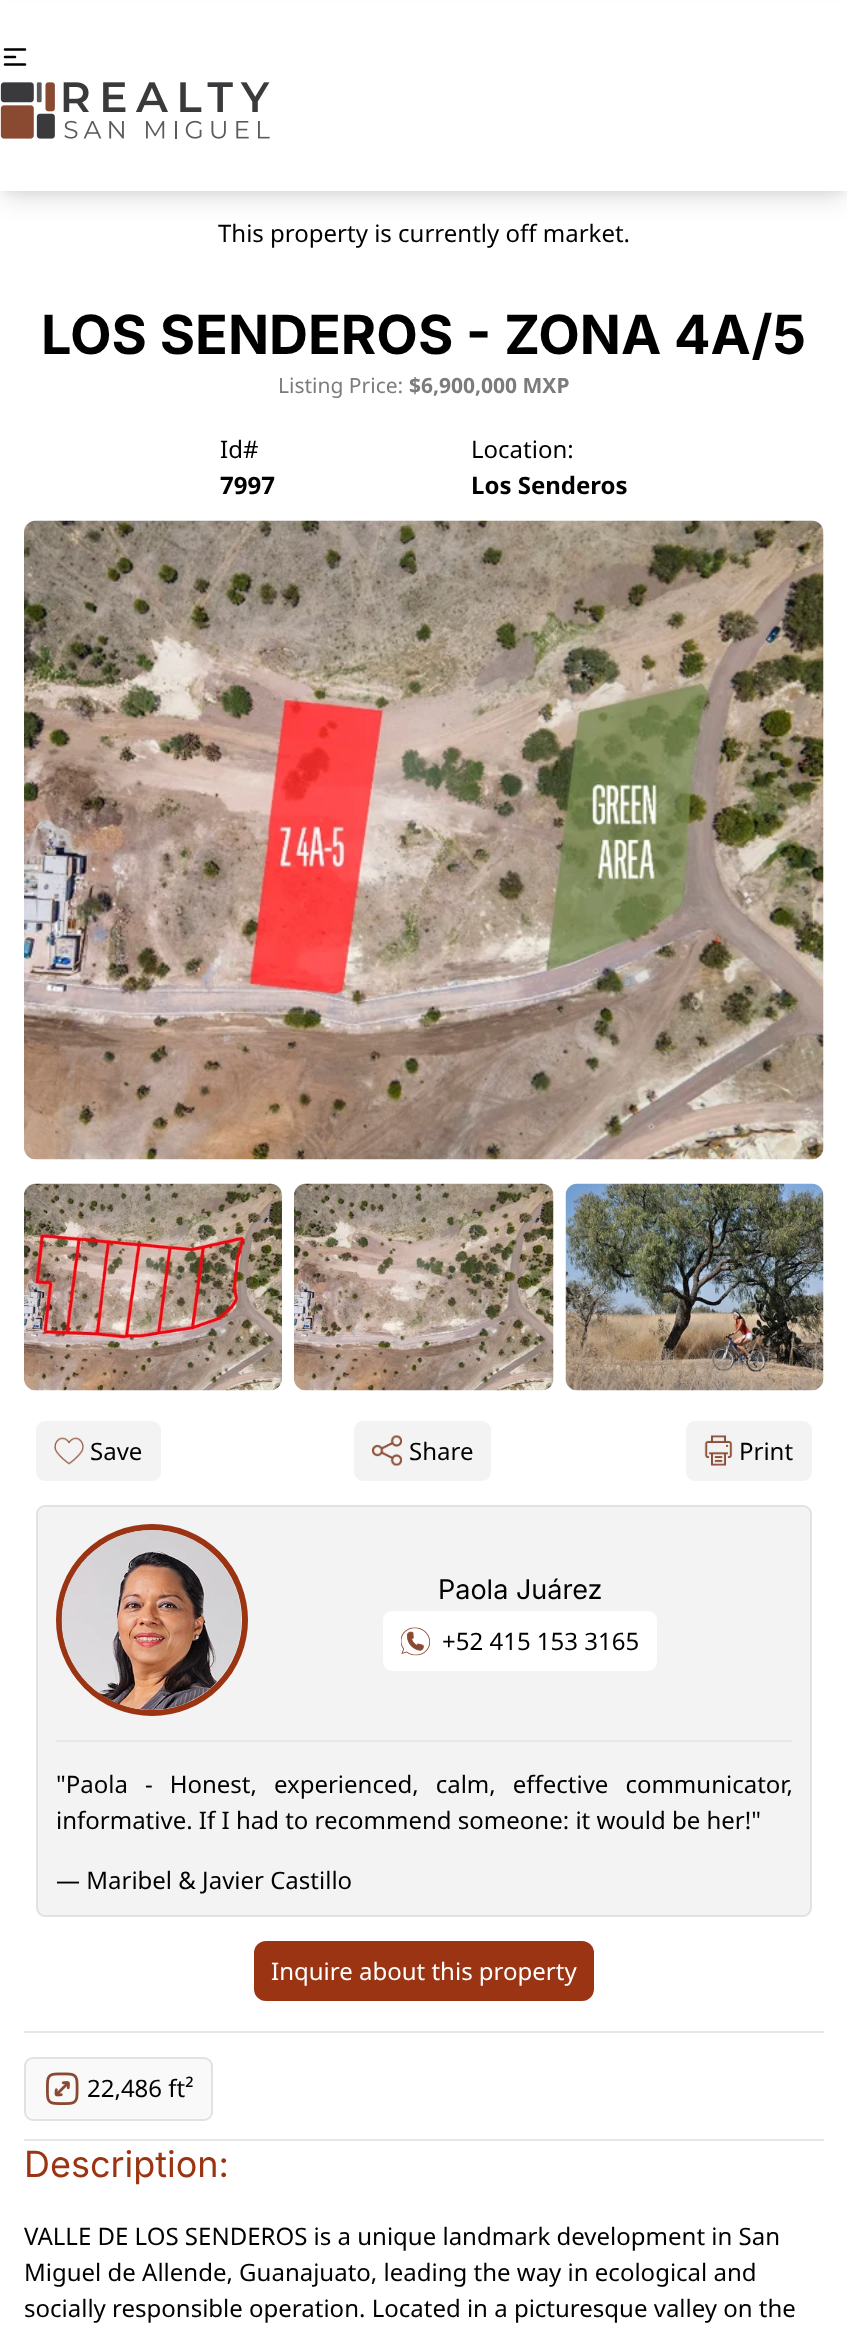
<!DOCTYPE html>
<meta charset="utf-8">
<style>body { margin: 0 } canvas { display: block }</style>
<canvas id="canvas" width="847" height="2347"></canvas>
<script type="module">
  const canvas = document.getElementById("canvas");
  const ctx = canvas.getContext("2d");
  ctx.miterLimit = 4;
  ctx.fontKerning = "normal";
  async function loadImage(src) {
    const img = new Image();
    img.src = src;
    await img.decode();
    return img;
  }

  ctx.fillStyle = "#ffffff";
  ctx.fillRect(0, 0, 847, 2347);
  ctx.fillStyle = "rgba(0, 0, 0, 0.05)";
  ctx.filter = "blur(4.5px)";
  ctx.beginPath();
  ctx.rect(3, 9, 842, 185);
  ctx.fill();
  ctx.filter = "none";
  ctx.fillStyle = "rgba(0, 0, 0, 0.1)";
  ctx.filter = "blur(11px)";
  ctx.beginPath();
  ctx.rect(5, 20, 838, 181);
  ctx.fill();
  ctx.filter = "none";
  ctx.fillStyle = "#ffffff";
  ctx.fillRect(0, 3, 847, 188);
  ctx.beginPath();
  ctx.moveTo(5, 49.5);
  ctx.lineTo(25, 49.5);
  ctx.moveTo(5, 57);
  ctx.lineTo(15, 57);
  ctx.moveTo(5, 64.5);
  ctx.lineTo(25, 64.5);
  ctx.strokeStyle = "#000000";
  ctx.lineWidth = 2.5;
  ctx.lineCap = "round";
  ctx.lineJoin = "round";
  ctx.stroke();
  ctx.drawImage(await loadImage("img1.png"), 0, 82, 270, 57);
  ctx.font = "24px Noto Sans";
  ctx.fillStyle = "#000000";
  ctx.fillText("This property is currently off market.", 218, 242);
  ctx.font = "bold 54px Inter";
  ctx.fillText("LOS SENDEROS - ZONA 4A/5", 41, 354);
  ctx.font = "21px Noto Sans";
  ctx.fillStyle = "#7c7c7c";
  ctx.fillText("Listing Price:", 278, 393);
  ctx.font = "bold 21px Noto Sans";
  ctx.fillText("$6,900,000 MXP", 409, 393);
  ctx.font = "24px Noto Sans";
  ctx.fillStyle = "#000000";
  ctx.fillText("Id#", 220, 458);
  ctx.font = "bold 24px Noto Sans";
  ctx.fillText("7997", 220, 494);
  ctx.font = "24px Noto Sans";
  ctx.fillText("Location:", 471, 458);
  ctx.font = "bold 24px Noto Sans";
  ctx.fillText("Los Senderos", 471, 494);
  ctx.drawImage(await loadImage("img2.png"), 24, 520, 800, 640);
  ctx.drawImage(await loadImage("img3.png"), 24, 1183, 258, 208);
  ctx.drawImage(await loadImage("img4.png"), 294, 1183, 260, 208);
  ctx.drawImage(await loadImage("img5.png"), 565, 1183, 259, 208);
  ctx.fillStyle = "#f3f3f3";
  ctx.beginPath();
  ctx.roundRect(36, 1421, 125, 60, 9);
  ctx.fill();
  ctx.drawImage(await loadImage("img6.png"), 54, 1437, 30, 28);
  ctx.font = "24px Noto Sans";
  ctx.fillStyle = "#000000";
  ctx.fillText("Save", 90, 1460);
  ctx.fillStyle = "#f3f3f3";
  ctx.beginPath();
  ctx.roundRect(354, 1421, 137, 60, 9);
  ctx.fill();
  ctx.drawImage(await loadImage("img7.png"), 372, 1435, 30, 31);
  ctx.fillStyle = "#000000";
  ctx.fillText("Share", 409, 1460);
  ctx.fillStyle = "#f3f3f3";
  ctx.beginPath();
  ctx.roundRect(686, 1421, 126, 60, 9);
  ctx.fill();
  ctx.drawImage(await loadImage("img8.png"), 704, 1435, 29, 31);
  ctx.fillStyle = "#000000";
  ctx.fillText("Print", 739, 1460);
  ctx.fillStyle = "#f3f3f3";
  ctx.beginPath();
  ctx.roundRect(37, 1506, 774, 410, 8);
  ctx.fill();
  ctx.strokeStyle = "#e2e2e2";
  ctx.lineWidth = 2;
  ctx.lineJoin = "miter";
  ctx.stroke();
  ctx.beginPath();
  ctx.arc(152, 1620, 93, 0, Math.PI * 2);
  ctx.strokeStyle = "#9a3412";
  ctx.lineWidth = 6;
  ctx.stroke();
  ctx.drawImage(await loadImage("img9.png"), 61, 1530, 181, 180);
  ctx.font = "27px Inter";
  ctx.fillStyle = "#000000";
  ctx.fillText("Paola Juárez", 438, 1599);
  ctx.fillStyle = "#ffffff";
  ctx.beginPath();
  ctx.roundRect(383, 1611, 274, 60, 9);
  ctx.fill();
  ctx.drawImage(await loadImage("img10.png"), 401, 1627, 30, 29);
  ctx.font = "24px Noto Sans";
  ctx.fillStyle = "#000000";
  ctx.fillText("+52 415 153 3165", 442, 1650);
  ctx.fillStyle = "#e5e7eb";
  ctx.fillRect(56, 1740, 736, 2);
  ctx.wordSpacing = "10.75px";
  ctx.fillStyle = "#000000";
  ctx.fillText("\"Paola - Honest, experienced, calm, effective communicator,", 56, 1793);
  ctx.wordSpacing = "0px";
  ctx.fillText("informative. If I had to recommend someone: it would be her!\"", 56, 1829);
  ctx.fillText("— Maribel & Javier Castillo", 56, 1889);
  ctx.fillStyle = "#9a3412";
  ctx.beginPath();
  ctx.roundRect(254, 1941, 340, 60, 12);
  ctx.fill();
  ctx.fillStyle = "#ffffff";
  ctx.fillText("Inquire about this property", 271, 1980);
  ctx.fillStyle = "#e5e7eb";
  ctx.fillRect(24, 2031, 800, 2);
  ctx.fillStyle = "#f9f9f9";
  ctx.beginPath();
  ctx.roundRect(25, 2058, 187, 62, 8);
  ctx.fill();
  ctx.strokeStyle = "#e2e2e2";
  ctx.lineWidth = 2;
  ctx.stroke();
  ctx.drawImage(await loadImage("img11.png"), 46, 2072, 33, 33);
  ctx.fillStyle = "#000000";
  ctx.fillText("22,486 ft²", 87, 2097);
  ctx.fillStyle = "#e5e7eb";
  ctx.fillRect(24, 2139, 800, 2);
  ctx.font = "36px Inter";
  ctx.fillStyle = "#9a3412";
  ctx.fillText("Description:", 24, 2177);
  ctx.font = "24px Noto Sans";
  ctx.fillStyle = "#000000";
  ctx.fillText("VALLE DE LOS SENDEROS is a unique landmark development in San", 24, 2245);
  ctx.fillText("Miguel de Allende, Guanajuato, leading the way in ecological and", 24, 2281);
  ctx.fillText("socially responsible operation. Located in a picturesque valley on the", 24, 2317);
</script>
